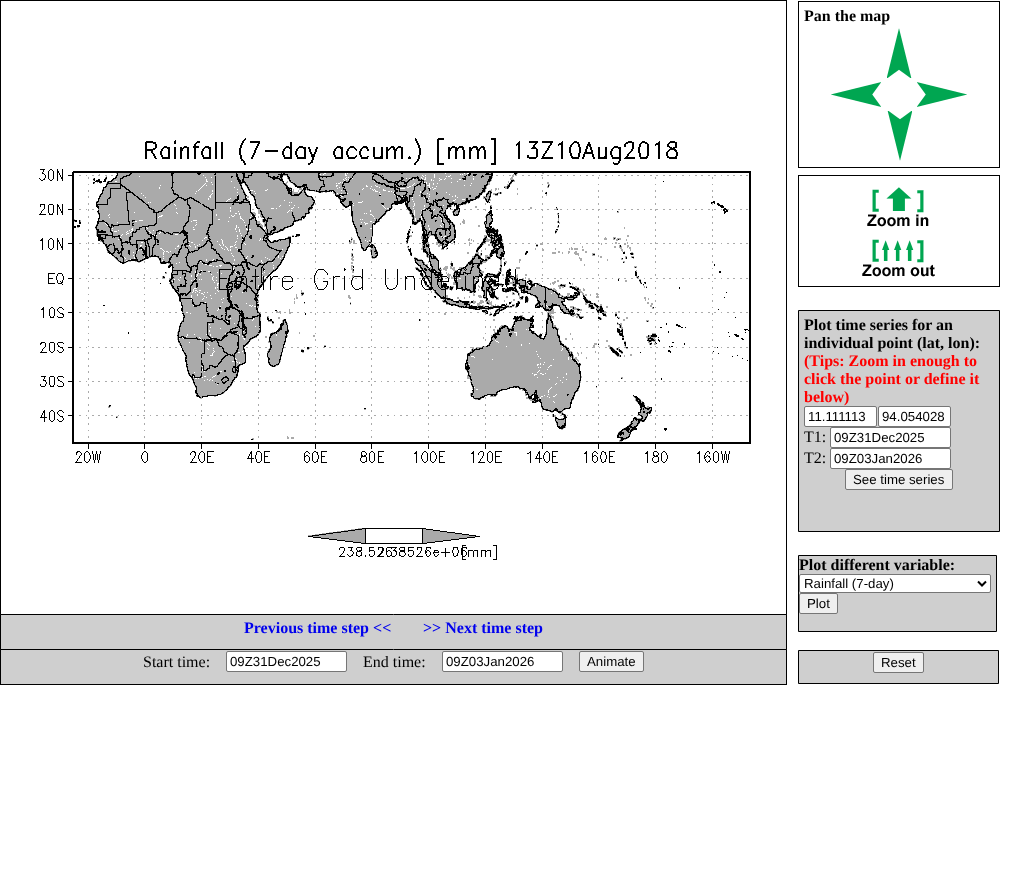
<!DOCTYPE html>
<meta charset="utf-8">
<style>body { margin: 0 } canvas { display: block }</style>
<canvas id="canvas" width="1019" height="883"></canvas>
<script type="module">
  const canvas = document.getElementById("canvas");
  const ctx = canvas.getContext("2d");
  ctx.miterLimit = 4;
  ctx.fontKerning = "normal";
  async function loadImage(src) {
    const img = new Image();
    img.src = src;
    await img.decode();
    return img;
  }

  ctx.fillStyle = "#ffffff";
  ctx.fillRect(0, 0, 1019, 883);
  ctx.strokeStyle = "#000000";
  ctx.strokeRect(0.5, 0.5, 786, 684);
  ctx.drawImage(await loadImage("img1.png"), 39, 138, 712, 422);
  ctx.strokeRect(798.5, 1.5, 201, 166);
  ctx.font = "bold 16px Liberation Serif";
  ctx.fillStyle = "#000000";
  ctx.fillText("Pan the map", 804, 21);
  ctx.drawImage(await loadImage("img2.png"), 887, 28, 25, 50);
  ctx.drawImage(await loadImage("img3.png"), 831, 82, 50, 25);
  ctx.drawImage(await loadImage("img4.png"), 917, 82, 50, 25);
  ctx.drawImage(await loadImage("img5.png"), 887, 111, 25, 50);
  ctx.strokeRect(798.5, 175.5, 201, 111);
  ctx.drawImage(await loadImage("img6.png"), 867, 187, 62, 40);
  ctx.drawImage(await loadImage("img7.png"), 862, 239, 73, 38);
  ctx.fillStyle = "#cfcfcf";
  ctx.beginPath();
  ctx.rect(798.5, 310.5, 201, 221);
  ctx.fill();
  ctx.stroke();
  ctx.fillStyle = "#000000";
  ctx.fillText("Plot time series for an", 804, 330);
  ctx.fillText("individual point (lat, lon):", 804, 348);
  ctx.fillStyle = "#ff0000";
  ctx.fillText("(Tips: Zoom in enough to", 804, 366);
  ctx.fillText("click the point or define it", 804, 384);
  ctx.fillText("below)", 804, 402);
  ctx.fillStyle = "#ffffff";
  ctx.beginPath();
  ctx.roundRect(804.5, 406.5, 72, 20, 1.5);
  ctx.fill();
  ctx.strokeStyle = "#767676";
  ctx.stroke();
  ctx.font = "13.25px Liberation Sans";
  ctx.fillStyle = "#000000";
  ctx.fillText("11.111113", 808, 421);
  ctx.fillStyle = "#ffffff";
  ctx.beginPath();
  ctx.roundRect(878.5, 406.5, 72, 20, 1.5);
  ctx.fill();
  ctx.stroke();
  ctx.fillStyle = "#000000";
  ctx.fillText("94.054028", 882, 421);
  ctx.font = "16px Liberation Serif";
  ctx.fillText("T1:", 804, 442);
  ctx.fillStyle = "#ffffff";
  ctx.beginPath();
  ctx.roundRect(830.5, 427.5, 120, 20, 1.5);
  ctx.fill();
  ctx.stroke();
  ctx.font = "13.25px Liberation Sans";
  ctx.fillStyle = "#000000";
  ctx.fillText("09Z31Dec2025", 834, 442);
  ctx.font = "16px Liberation Serif";
  ctx.fillText("T2:", 804, 463);
  ctx.fillStyle = "#ffffff";
  ctx.beginPath();
  ctx.roundRect(830.5, 448.5, 120, 20, 1.5);
  ctx.fill();
  ctx.stroke();
  ctx.font = "13.25px Liberation Sans";
  ctx.fillStyle = "#000000";
  ctx.fillText("09Z03Jan2026", 834, 463);
  ctx.fillStyle = "#efefef";
  ctx.beginPath();
  ctx.roundRect(845.5, 469.5, 107, 20, 1.5);
  ctx.fill();
  ctx.stroke();
  ctx.fillStyle = "#000000";
  ctx.fillText("See time series", 853, 484);
  ctx.fillStyle = "#cfcfcf";
  ctx.beginPath();
  ctx.rect(798.5, 555.5, 198, 76);
  ctx.fill();
  ctx.strokeStyle = "#000000";
  ctx.stroke();
  ctx.font = "bold 16px Liberation Serif";
  ctx.fillStyle = "#000000";
  ctx.fillText("Plot different variable:", 799, 570);
  ctx.fillStyle = "#ffffff";
  ctx.beginPath();
  ctx.roundRect(799.5, 574.5, 191, 18, 1.5);
  ctx.fill();
  ctx.strokeStyle = "#767676";
  ctx.stroke();
  ctx.beginPath();
  ctx.moveTo(978, 581.5);
  ctx.lineTo(982, 585.5);
  ctx.lineTo(986, 581.5);
  ctx.strokeStyle = "#000000";
  ctx.lineWidth = 2;
  ctx.stroke();
  ctx.font = "13.25px Liberation Sans";
  ctx.fillStyle = "#000000";
  ctx.fillText("Rainfall (7-day)", 804, 588);
  ctx.fillStyle = "#efefef";
  ctx.beginPath();
  ctx.roundRect(799.5, 593.5, 38, 20, 1.5);
  ctx.fill();
  ctx.strokeStyle = "#767676";
  ctx.lineWidth = 1;
  ctx.stroke();
  ctx.fillStyle = "#000000";
  ctx.fillText("Plot", 807, 608);
  ctx.fillStyle = "#cfcfcf";
  ctx.beginPath();
  ctx.rect(0.5, 614.5, 786, 35);
  ctx.fill();
  ctx.strokeStyle = "#000000";
  ctx.stroke();
  ctx.font = "bold 16px Liberation Serif";
  ctx.fillStyle = "#0000ee";
  ctx.fillText("Previous time step <<", 244, 633);
  ctx.fillText(">> Next time step", 423, 633);
  ctx.fillStyle = "#cfcfcf";
  ctx.fillRect(1, 650, 785, 34);
  ctx.font = "16px Liberation Serif";
  ctx.fillStyle = "#000000";
  ctx.fillText("Start time:", 143, 667);
  ctx.fillStyle = "#ffffff";
  ctx.beginPath();
  ctx.roundRect(226.5, 651.5, 120, 20, 1.5);
  ctx.fill();
  ctx.strokeStyle = "#767676";
  ctx.stroke();
  ctx.font = "13.25px Liberation Sans";
  ctx.fillStyle = "#000000";
  ctx.fillText("09Z31Dec2025", 230, 666);
  ctx.font = "16px Liberation Serif";
  ctx.fillText("End time:", 363, 667);
  ctx.fillStyle = "#ffffff";
  ctx.beginPath();
  ctx.roundRect(442.5, 651.5, 120, 20, 1.5);
  ctx.fill();
  ctx.stroke();
  ctx.font = "13.25px Liberation Sans";
  ctx.fillStyle = "#000000";
  ctx.fillText("09Z03Jan2026", 446, 666);
  ctx.fillStyle = "#efefef";
  ctx.beginPath();
  ctx.roundRect(579.5, 651.5, 64, 20, 1.5);
  ctx.fill();
  ctx.stroke();
  ctx.fillStyle = "#000000";
  ctx.fillText("Animate", 587, 666);
  ctx.fillStyle = "#cfcfcf";
  ctx.beginPath();
  ctx.rect(798.5, 650.5, 200, 33);
  ctx.fill();
  ctx.strokeStyle = "#000000";
  ctx.stroke();
  ctx.fillStyle = "#efefef";
  ctx.beginPath();
  ctx.roundRect(873.5, 652.5, 50, 20, 1.5);
  ctx.fill();
  ctx.strokeStyle = "#767676";
  ctx.stroke();
  ctx.fillStyle = "#000000";
  ctx.fillText("Reset", 881, 667);
</script>
